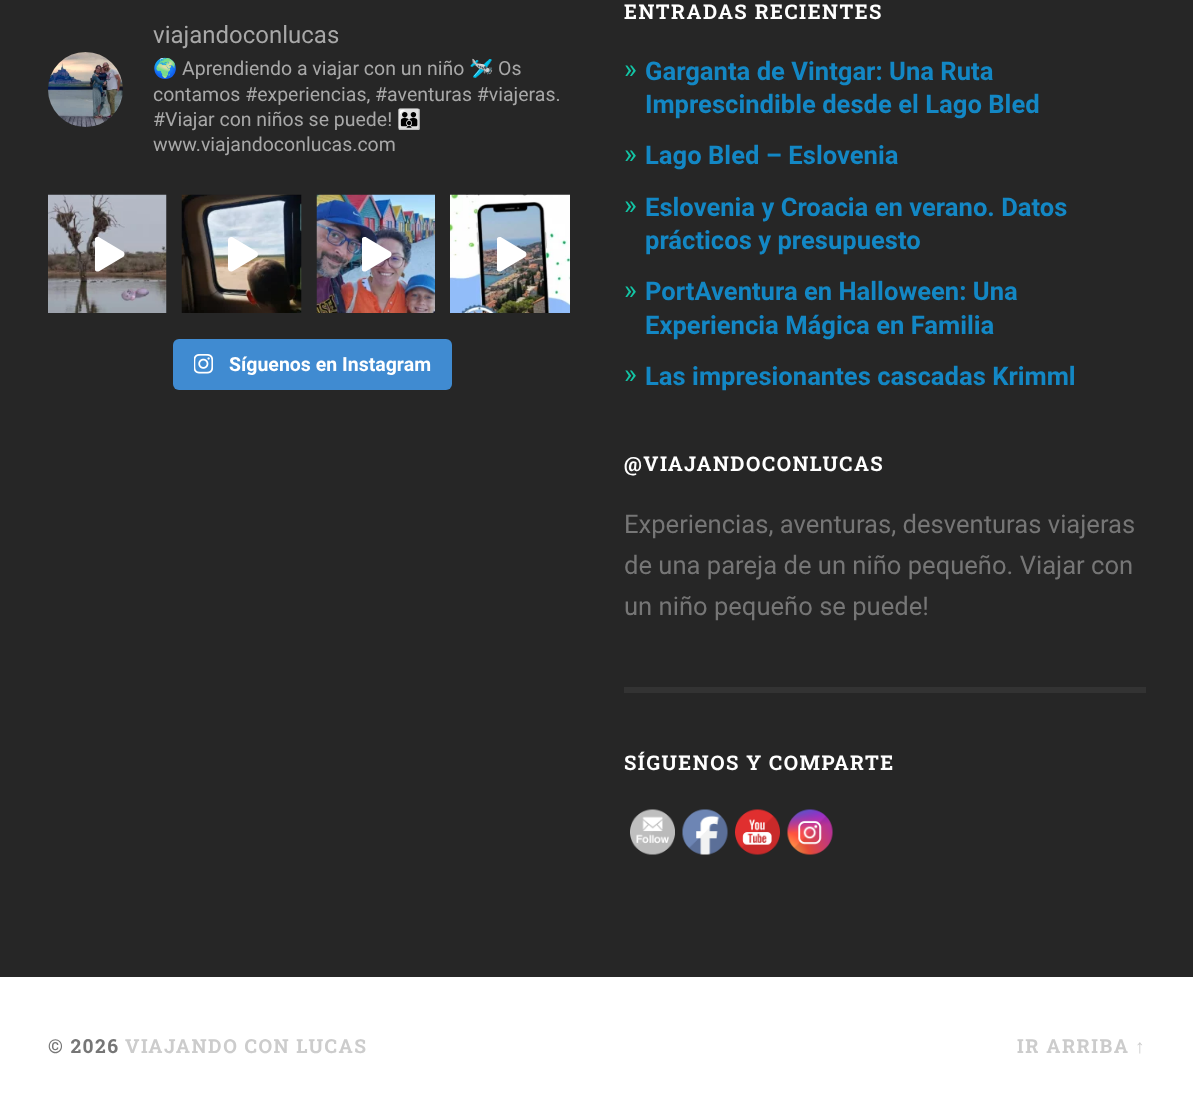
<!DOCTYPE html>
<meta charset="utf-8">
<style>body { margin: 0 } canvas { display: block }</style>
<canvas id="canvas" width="1193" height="1116"></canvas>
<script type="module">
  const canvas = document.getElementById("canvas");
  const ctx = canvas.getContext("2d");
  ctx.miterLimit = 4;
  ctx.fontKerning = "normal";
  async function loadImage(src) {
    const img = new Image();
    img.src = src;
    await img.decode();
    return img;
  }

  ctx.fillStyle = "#262626";
  ctx.fillRect(0, 0, 1193, 1116);
  ctx.drawImage(await loadImage("img1.png"), 48, 52, 75, 75);
  ctx.font = "24px Roboto";
  ctx.fillStyle = "#a8a8a8";
  ctx.fillText("viajandoconlucas", 153, 43);
  ctx.font = "19.5px Noto Color Emoji";
  ctx.fillText("🌍", 153, 75);
  ctx.font = "19.5px Roboto";
  ctx.fillText("Aprendiendo a viajar con un niño", 182, 75);
  ctx.font = "19.5px Noto Color Emoji";
  ctx.fillText("🛩️", 469, 75);
  ctx.font = "19.5px Roboto";
  ctx.fillText("Os", 498, 75);
  ctx.fillText("contamos #experiencias, #aventuras #viajeras.", 153, 101);
  ctx.fillText("#Viajar con niños se puede!", 153, 126);
  ctx.font = "19.5px Noto Color Emoji";
  ctx.fillText("👪", 397, 126);
  ctx.font = "19.5px Roboto";
  ctx.fillText("www.viajandoconlucas.com", 153, 151);
  ctx.drawImage(await loadImage("img2.png"), 48, 194, 119, 119);
  ctx.save();
  ctx.beginPath();
  ctx.rect(95, 237, 30, 35);
  ctx.clip();
  ctx.fillStyle = "#ffffff";
  ctx.beginPath();
  ctx.moveTo(123, 251.5);
  ctx.lineTo(99.5, 237.5);
  ctx.bezierCurveTo(97.5, 236.5, 94.5, 237.5, 94.5, 240);
  ctx.lineTo(94.5, 268.5);
  ctx.bezierCurveTo(94.5, 271, 97, 272.5, 99.5, 271);
  ctx.lineTo(123, 257);
  ctx.bezierCurveTo(125, 256, 125, 252.5, 123, 251.5);
  ctx.closePath();
  ctx.fill();
  ctx.restore();
  ctx.drawImage(await loadImage("img3.png"), 181, 194, 121, 119);
  ctx.fillStyle = "#ffffff";
  ctx.beginPath();
  ctx.moveTo(256.5, 251.5);
  ctx.lineTo(233, 237.5);
  ctx.bezierCurveTo(231, 236.5, 228, 237.5, 228, 240);
  ctx.lineTo(228, 268.5);
  ctx.bezierCurveTo(228, 271, 230.5, 272.5, 233, 271);
  ctx.lineTo(256.5, 257);
  ctx.bezierCurveTo(258.5, 256, 258.5, 252.5, 256.5, 251.5);
  ctx.closePath();
  ctx.fill();
  ctx.drawImage(await loadImage("img4.png"), 316, 194, 119, 119);
  ctx.save();
  ctx.beginPath();
  ctx.rect(362, 237, 31, 35);
  ctx.clip();
  ctx.beginPath();
  ctx.moveTo(390, 251.5);
  ctx.lineTo(366.5, 237.5);
  ctx.bezierCurveTo(364.5, 236.5, 361.5, 237.5, 361.5, 240);
  ctx.lineTo(361.5, 268.5);
  ctx.bezierCurveTo(361.5, 271, 364, 272.5, 366.5, 271);
  ctx.lineTo(390, 257);
  ctx.bezierCurveTo(392, 256, 392, 252.5, 390, 251.5);
  ctx.closePath();
  ctx.fill();
  ctx.restore();
  ctx.drawImage(await loadImage("img5.png"), 450, 194, 120, 119);
  ctx.save();
  ctx.beginPath();
  ctx.rect(497, 237, 30, 35);
  ctx.clip();
  ctx.beginPath();
  ctx.moveTo(525, 251.5);
  ctx.lineTo(501.5, 237.5);
  ctx.bezierCurveTo(499.5, 236.5, 496.5, 237.5, 496.5, 240);
  ctx.lineTo(496.5, 268.5);
  ctx.bezierCurveTo(496.5, 271, 499, 272.5, 501.5, 271);
  ctx.lineTo(525, 257);
  ctx.bezierCurveTo(527, 256, 527, 252.5, 525, 251.5);
  ctx.closePath();
  ctx.fill();
  ctx.restore();
  ctx.fillStyle = "#408bd1";
  ctx.beginPath();
  ctx.roundRect(173, 339, 279, 51, 6);
  ctx.fill();
  ctx.drawImage(await loadImage("img6.png"), 194, 354, 19, 20);
  ctx.font = "bold 19.5px Roboto";
  ctx.fillStyle = "#ffffff";
  ctx.fillText("Síguenos en Instagram", 229, 371);
  ctx.letterSpacing = "1.5px";
  ctx.font = "bold 20.25px Roboto Slab";
  ctx.fillText("ENTRADAS RECIENTES", 624, 19);
  ctx.letterSpacing = "0px";
  ctx.font = "27px Roboto";
  ctx.fillStyle = "#13c4a5";
  ctx.fillText("»", 624, 78);
  ctx.font = "bold 25.6px Roboto";
  ctx.fillStyle = "#1387c4";
  ctx.fillText("Garganta de Vintgar: Una Ruta", 645, 80);
  ctx.fillText("Imprescindible desde el Lago Bled", 645, 113);
  ctx.font = "27px Roboto";
  ctx.fillStyle = "#13c4a5";
  ctx.fillText("»", 624, 163);
  ctx.font = "bold 25.6px Roboto";
  ctx.fillStyle = "#1387c4";
  ctx.fillText("Lago Bled – Eslovenia", 645, 164);
  ctx.font = "27px Roboto";
  ctx.fillStyle = "#13c4a5";
  ctx.fillText("»", 624, 214);
  ctx.font = "bold 25.6px Roboto";
  ctx.fillStyle = "#1387c4";
  ctx.fillText("Eslovenia y Croacia en verano. Datos", 645, 216);
  ctx.fillText("prácticos y presupuesto", 645, 249);
  ctx.font = "27px Roboto";
  ctx.fillStyle = "#13c4a5";
  ctx.fillText("»", 624, 299);
  ctx.font = "bold 25.6px Roboto";
  ctx.fillStyle = "#1387c4";
  ctx.fillText("PortAventura en Halloween: Una", 645, 300);
  ctx.fillText("Experiencia Mágica en Familia", 645, 334);
  ctx.font = "27px Roboto";
  ctx.fillStyle = "#13c4a5";
  ctx.fillText("»", 624, 383);
  ctx.font = "bold 25.6px Roboto";
  ctx.fillStyle = "#1387c4";
  ctx.fillText("Las impresionantes cascadas Krimml", 645, 385);
  ctx.letterSpacing = "1.5px";
  ctx.font = "bold 20.25px Roboto Slab";
  ctx.fillStyle = "#ffffff";
  ctx.fillText("@VIAJANDOCONLUCAS", 624, 471);
  ctx.letterSpacing = "0px";
  ctx.font = "25.6px Roboto";
  ctx.fillStyle = "#767676";
  ctx.fillText("Experiencias, aventuras, desventuras viajeras", 624, 533);
  ctx.fillText("de una pareja de un niño pequeño. Viajar con", 624, 574);
  ctx.fillText("un niño pequeño se puede!", 624, 615);
  ctx.fillStyle = "#333333";
  ctx.fillRect(624, 687, 522, 6);
  ctx.letterSpacing = "1.5px";
  ctx.font = "bold 20.25px Roboto Slab";
  ctx.fillStyle = "#ffffff";
  ctx.fillText("SÍGUENOS Y COMPARTE", 624, 770);
  ctx.drawImage(await loadImage("img7.png"), 630, 809, 45, 46);
  ctx.drawImage(await loadImage("img8.png"), 682, 809, 46, 46);
  ctx.drawImage(await loadImage("img9.png"), 735, 809, 45, 46);
  ctx.drawImage(await loadImage("img10.png"), 787, 809, 46, 46);
  ctx.fillRect(0, 977, 1193, 139);
  ctx.font = "bold 19.25px Roboto Slab";
  ctx.fillStyle = "#767676";
  ctx.fillText("© 2026", 48, 1053);
  ctx.fillStyle = "#cccccc";
  ctx.fillText("VIAJANDO CON LUCAS", 125, 1053);
  ctx.fillText("IR ARRIBA", 1017, 1053);
  ctx.font = "bold 19.25px Liberation Sans";
  ctx.fillText("↑", 1135, 1053);
</script>
